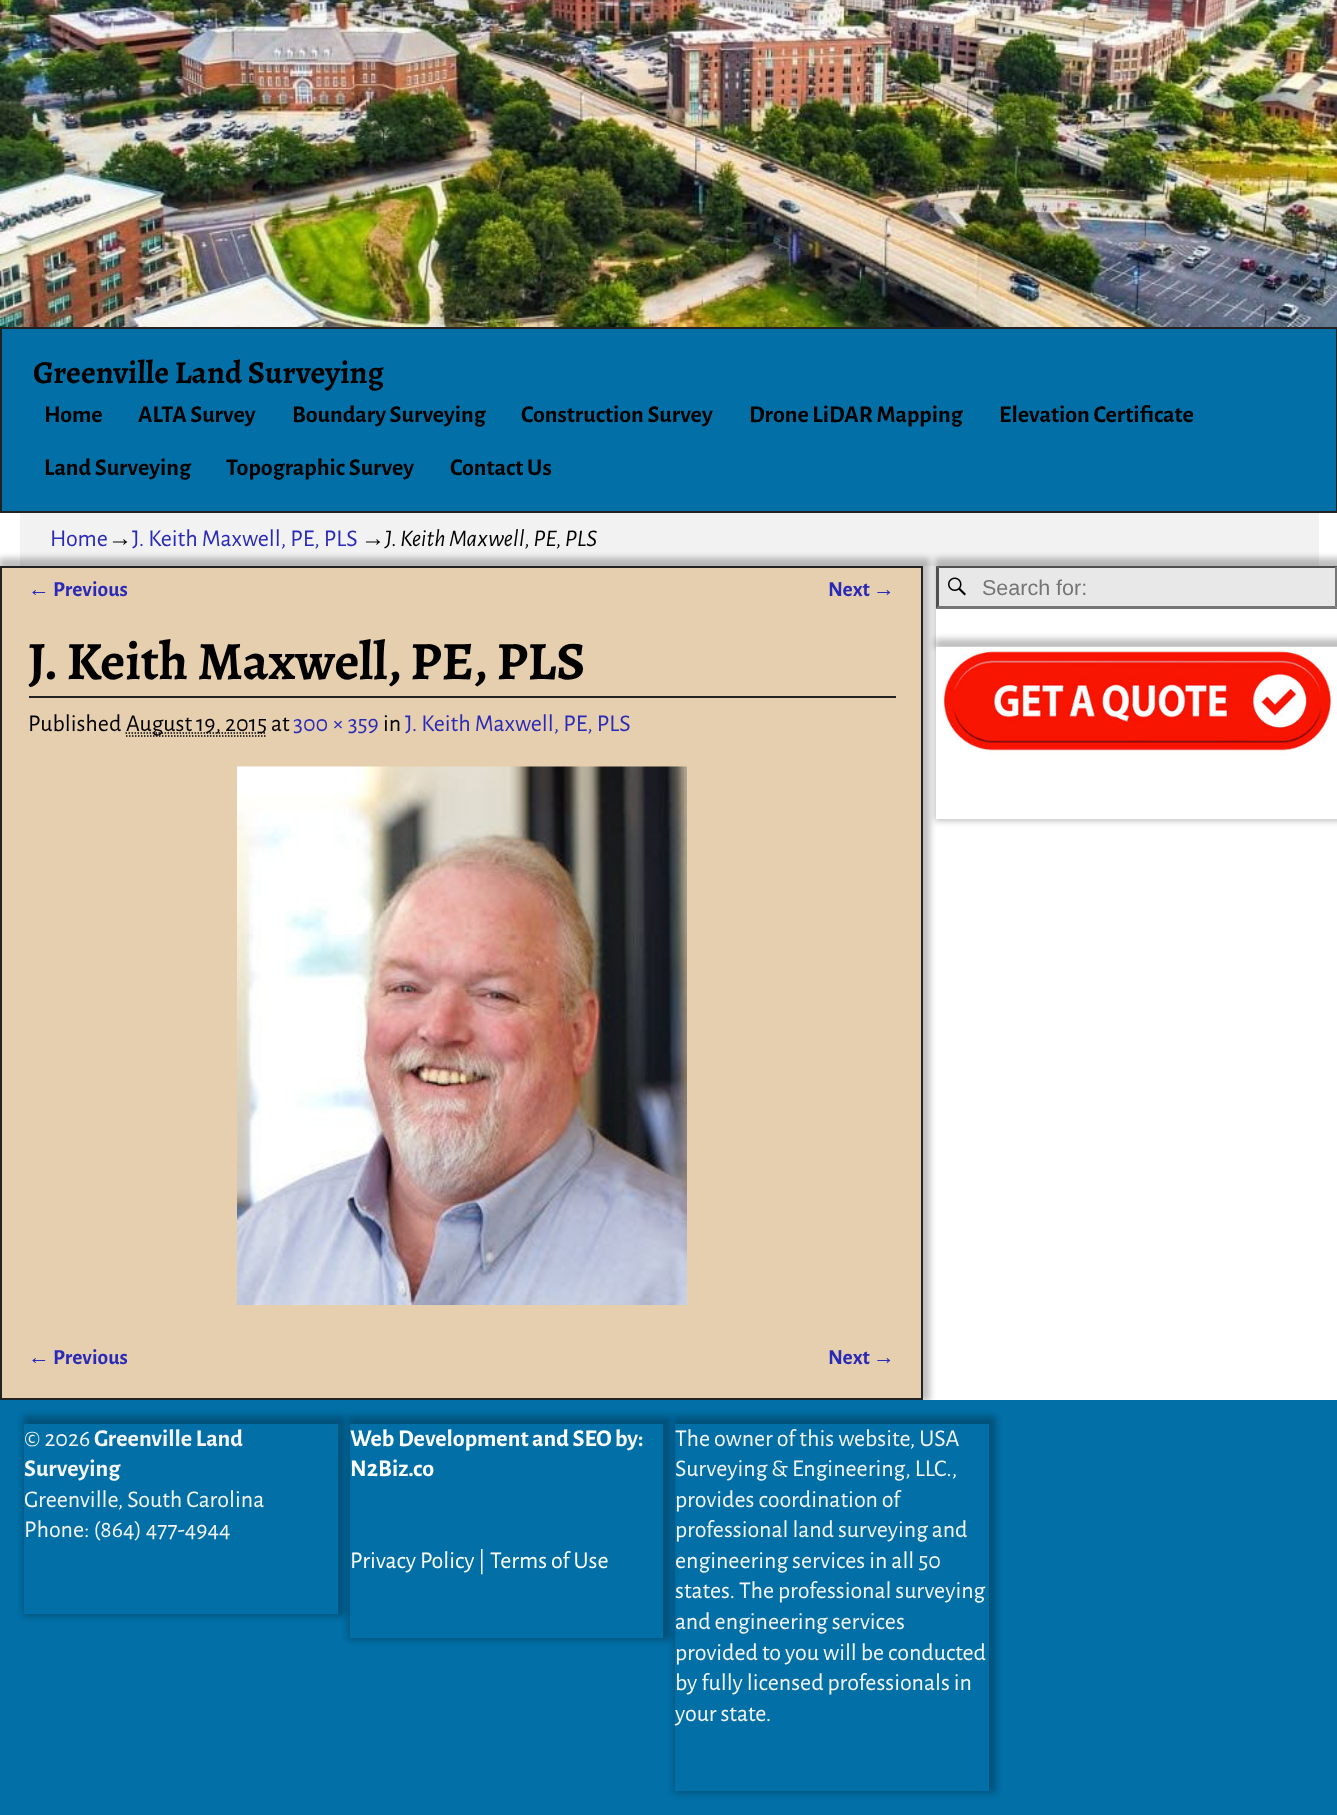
<!DOCTYPE html>
<meta charset="utf-8">
<style>body { margin: 0 } canvas { display: block }</style>
<canvas id="canvas" width="1337" height="1815"></canvas>
<script type="module">
  const canvas = document.getElementById("canvas");
  const ctx = canvas.getContext("2d");
  ctx.miterLimit = 4;
  ctx.fontKerning = "normal";
  async function loadImage(src) {
    const img = new Image();
    img.src = src;
    await img.decode();
    return img;
  }

  ctx.fillStyle = "#ffffff";
  ctx.fillRect(0, 0, 1337, 1815);
  ctx.drawImage(await loadImage("img1.png"), 0, 0, 1337, 327);
  ctx.fillStyle = "#026fa6";
  ctx.beginPath();
  ctx.rect(1, 328, 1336, 184);
  ctx.fill();
  ctx.strokeStyle = "#222222";
  ctx.lineWidth = 2;
  ctx.stroke();
  ctx.font = "bold 32px Alegreya";
  ctx.fillStyle = "#000000";
  ctx.fillText("Greenville Land Surveying", 33, 383);
  ctx.font = "bold 24px Alegreya Sans";
  ctx.fillText("Home", 44, 422);
  ctx.fillText("ALTA Survey", 138, 422);
  ctx.fillText("Boundary Surveying", 292, 422);
  ctx.fillText("Construction Survey", 521, 422);
  ctx.fillText("Drone LiDAR Mapping", 749, 422);
  ctx.fillText("Elevation Certificate", 999, 422);
  ctx.fillText("Land Surveying", 44, 475);
  ctx.fillText("Topographic Survey", 226, 475);
  ctx.fillText("Contact Us", 450, 475);
  ctx.fillStyle = "#f2f2f2";
  ctx.fillRect(20, 513, 1299, 53);
  ctx.font = "24px Alegreya Sans";
  ctx.fillStyle = "#2a2ab8";
  ctx.fillText("Home", 50, 546);
  ctx.font = "24px Liberation Sans";
  ctx.fillStyle = "#000000";
  ctx.fillText("→", 108, 546);
  ctx.font = "24px Alegreya Sans";
  ctx.fillStyle = "#2a2ab8";
  ctx.fillText("J. Keith Maxwell, PE, PLS", 132, 546);
  ctx.font = "24px Liberation Sans";
  ctx.fillStyle = "#000000";
  ctx.fillText("→", 361, 546);
  ctx.font = "italic 24px Alegreya Sans";
  ctx.fillText("J. Keith Maxwell, PE, PLS", 385, 546);
  ctx.fillStyle = "#026fa6";
  ctx.fillRect(0, 1400, 1337, 415);
  ctx.save();
  ctx.beginPath();
  ctx.rect(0, 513, 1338, 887);
  ctx.clip();
  ctx.fillStyle = "rgba(0, 0, 0, 0.25)";
  ctx.filter = "blur(3px)";
  ctx.beginPath();
  ctx.rect(-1, 558, 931, 843);
  ctx.fill();
  ctx.filter = "none";
  ctx.restore();
  ctx.fillStyle = "#e6cfaf";
  ctx.beginPath();
  ctx.rect(1, 567, 921, 832);
  ctx.fill();
  ctx.stroke();
  ctx.font = "bold 21.5px Liberation Sans";
  ctx.fillStyle = "#2a2ab8";
  ctx.fillText("←", 28, 596);
  ctx.font = "bold 21.5px Alegreya Sans";
  ctx.fillText("Previous", 53, 596);
  ctx.fillText("Next", 828, 596);
  ctx.font = "bold 21.5px Liberation Sans";
  ctx.fillText("→", 873, 596);
  ctx.fillStyle = "#222222";
  ctx.fillRect(29, 696, 867, 2);
  ctx.font = "bold 54px Alegreya";
  ctx.fillStyle = "#000000";
  ctx.fillText("J. Keith Maxwell, PE, PLS", 28, 679);
  ctx.font = "24px Alegreya Sans";
  ctx.fillText("Published", 28, 731);
  ctx.beginPath();
  ctx.moveTo(126, 736);
  ctx.lineTo(267, 736);
  ctx.strokeStyle = "#000000";
  ctx.lineWidth = 1.5;
  ctx.setLineDash([1.5, 1.5]);
  ctx.stroke();
  ctx.beginPath();
  ctx.moveTo(125.5, 733);
  ctx.lineTo(266.5, 733);
  ctx.stroke();
  ctx.fillText("August 19, 2015 at", 126, 731);
  ctx.fillStyle = "#2a2ab8";
  ctx.fillText("300 × 359", 293, 731);
  ctx.fillStyle = "#000000";
  ctx.fillText("in", 383, 731);
  ctx.fillStyle = "#2a2ab8";
  ctx.fillText("J. Keith Maxwell, PE, PLS", 405, 731);
  ctx.drawImage(await loadImage("img2.png"), 237, 766, 450, 539);
  ctx.font = "bold 21.5px Liberation Sans";
  ctx.fillText("←", 28, 1364);
  ctx.font = "bold 21.5px Alegreya Sans";
  ctx.fillText("Previous", 53, 1364);
  ctx.fillText("Next", 828, 1364);
  ctx.font = "bold 21.5px Liberation Sans";
  ctx.fillText("→", 873, 1364);
  ctx.save();
  ctx.beginPath();
  ctx.moveTo(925, 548);
  ctx.lineTo(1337, 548);
  ctx.lineTo(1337, 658);
  ctx.lineTo(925, 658);
  ctx.closePath();
  ctx.moveTo(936, 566);
  ctx.lineTo(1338, 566);
  ctx.lineTo(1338, 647);
  ctx.lineTo(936, 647);
  ctx.closePath();
  ctx.clip("evenodd");
  ctx.fillStyle = "rgba(0, 0, 0, 0.25)";
  ctx.filter = "blur(3px)";
  ctx.beginPath();
  ctx.rect(935, 558, 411, 90);
  ctx.fill();
  ctx.filter = "none";
  ctx.restore();
  ctx.fillStyle = "#e8e8e8";
  ctx.fillRect(936, 566, 401, 43);
  ctx.drawImage(await loadImage("img3.png"), 948, 577, 18, 19);
  ctx.fillStyle = "#4f4f4f";
  ctx.beginPath();
  ctx.moveTo(936, 566);
  ctx.lineTo(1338, 566);
  ctx.lineTo(1335, 568);
  ctx.lineTo(939, 568);
  ctx.closePath();
  ctx.fill();
  ctx.fillStyle = "#767676";
  ctx.beginPath();
  ctx.moveTo(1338, 566);
  ctx.lineTo(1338, 609);
  ctx.lineTo(1335, 606);
  ctx.lineTo(1335, 568);
  ctx.closePath();
  ctx.fill();
  ctx.beginPath();
  ctx.moveTo(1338, 609);
  ctx.lineTo(936, 609);
  ctx.lineTo(939, 606);
  ctx.lineTo(1335, 606);
  ctx.closePath();
  ctx.fill();
  ctx.fillStyle = "#4f4f4f";
  ctx.beginPath();
  ctx.moveTo(936, 609);
  ctx.lineTo(936, 566);
  ctx.lineTo(939, 568);
  ctx.lineTo(939, 606);
  ctx.closePath();
  ctx.fill();
  ctx.font = "21.5px Liberation Sans";
  ctx.fillStyle = "#757575";
  ctx.fillText("Search for:", 982, 595);
  ctx.save();
  ctx.beginPath();
  ctx.moveTo(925, 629);
  ctx.lineTo(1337, 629);
  ctx.lineTo(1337, 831);
  ctx.lineTo(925, 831);
  ctx.closePath();
  ctx.moveTo(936, 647);
  ctx.lineTo(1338, 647);
  ctx.lineTo(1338, 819);
  ctx.lineTo(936, 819);
  ctx.closePath();
  ctx.clip("evenodd");
  ctx.fillStyle = "rgba(0, 0, 0, 0.25)";
  ctx.filter = "blur(3px)";
  ctx.beginPath();
  ctx.rect(935, 639, 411, 182);
  ctx.fill();
  ctx.filter = "none";
  ctx.restore();
  ctx.drawImage(await loadImage("img4.png"), 936, 646, 401, 110);
  ctx.save();
  ctx.beginPath();
  ctx.moveTo(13, 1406);
  ctx.lineTo(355, 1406);
  ctx.lineTo(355, 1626);
  ctx.lineTo(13, 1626);
  ctx.closePath();
  ctx.moveTo(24, 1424);
  ctx.lineTo(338, 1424);
  ctx.lineTo(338, 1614);
  ctx.lineTo(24, 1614);
  ctx.closePath();
  ctx.clip("evenodd");
  ctx.fillStyle = "rgba(0, 0, 0, 0.25)";
  ctx.filter = "blur(3px)";
  ctx.beginPath();
  ctx.rect(23, 1416, 322, 200);
  ctx.fill();
  ctx.filter = "none";
  ctx.restore();
  ctx.font = "24px Alegreya Sans";
  ctx.fillStyle = "#f5f5f5";
  ctx.fillText("© 2026", 24, 1446);
  ctx.font = "bold 24px Alegreya Sans";
  ctx.fillText("Greenville Land", 94, 1446);
  ctx.fillText("Surveying", 24, 1476);
  ctx.font = "24px Alegreya Sans";
  ctx.fillText("Greenville, South Carolina", 24, 1507);
  ctx.fillText("Phone: (864) 477-4944", 24, 1537);
  ctx.save();
  ctx.beginPath();
  ctx.moveTo(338, 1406);
  ctx.lineTo(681, 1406);
  ctx.lineTo(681, 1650);
  ctx.lineTo(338, 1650);
  ctx.closePath();
  ctx.moveTo(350, 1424);
  ctx.lineTo(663, 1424);
  ctx.lineTo(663, 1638);
  ctx.lineTo(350, 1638);
  ctx.closePath();
  ctx.clip("evenodd");
  ctx.fillStyle = "rgba(0, 0, 0, 0.25)";
  ctx.filter = "blur(3px)";
  ctx.beginPath();
  ctx.rect(348, 1416, 323, 224);
  ctx.fill();
  ctx.filter = "none";
  ctx.restore();
  ctx.font = "bold 24px Alegreya Sans";
  ctx.fillStyle = "#ffffff";
  ctx.fillText("Web Development and SEO", 350, 1446);
  ctx.fillStyle = "#f5f5f5";
  ctx.fillText("by:", 615, 1446);
  ctx.fillStyle = "#ffffff";
  ctx.fillText("N2Biz.co", 350, 1476);
  ctx.font = "24px Alegreya Sans";
  ctx.fillText("Privacy Policy", 350, 1568);
  ctx.fillStyle = "#f5f5f5";
  ctx.fillText("|", 478, 1568);
  ctx.fillStyle = "#ffffff";
  ctx.fillText("Terms of Use", 490, 1568);
  ctx.save();
  ctx.beginPath();
  ctx.moveTo(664, 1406);
  ctx.lineTo(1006, 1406);
  ctx.lineTo(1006, 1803);
  ctx.lineTo(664, 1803);
  ctx.closePath();
  ctx.moveTo(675, 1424);
  ctx.lineTo(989, 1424);
  ctx.lineTo(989, 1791);
  ctx.lineTo(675, 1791);
  ctx.closePath();
  ctx.clip("evenodd");
  ctx.fillStyle = "rgba(0, 0, 0, 0.25)";
  ctx.filter = "blur(3px)";
  ctx.beginPath();
  ctx.rect(674, 1416, 322, 377);
  ctx.fill();
  ctx.filter = "none";
  ctx.restore();
  ctx.fillStyle = "#f5f5f5";
  ctx.fillText("The owner of this website, USA", 675, 1446);
  ctx.fillText("Surveying & Engineering, LLC.,", 675, 1476);
  ctx.fillText("provides coordination of", 675, 1507);
  ctx.fillText("professional land surveying and", 675, 1537);
  ctx.fillText("engineering services in all 50", 675, 1568);
  ctx.fillText("states. The professional surveying", 675, 1598);
  ctx.fillText("and engineering services", 675, 1629);
  ctx.fillText("provided to you will be conducted", 675, 1660);
  ctx.fillText("by fully licensed professionals in", 675, 1690);
  ctx.fillText("your state.", 675, 1721);
</script>
